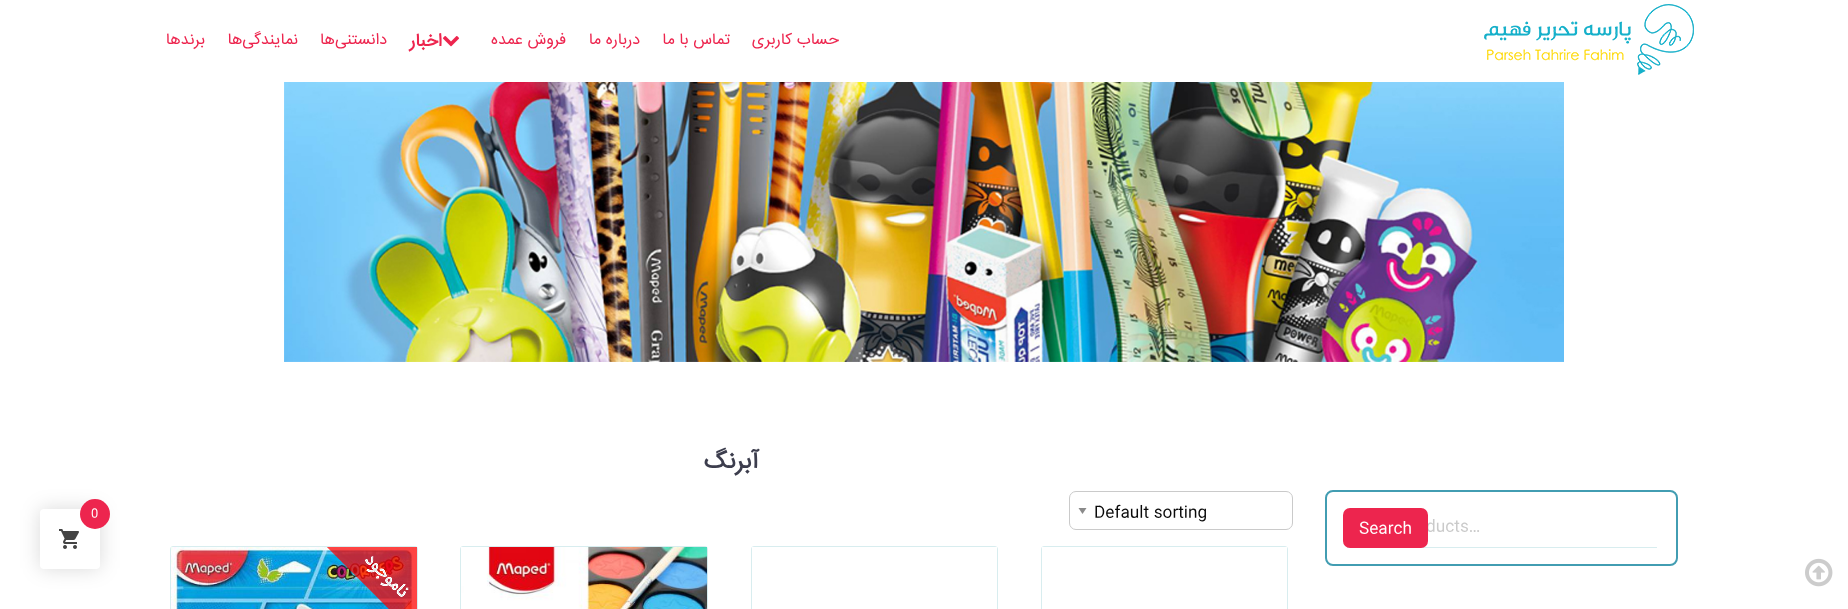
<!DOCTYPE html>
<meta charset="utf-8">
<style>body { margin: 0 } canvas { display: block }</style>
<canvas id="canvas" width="1848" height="609"></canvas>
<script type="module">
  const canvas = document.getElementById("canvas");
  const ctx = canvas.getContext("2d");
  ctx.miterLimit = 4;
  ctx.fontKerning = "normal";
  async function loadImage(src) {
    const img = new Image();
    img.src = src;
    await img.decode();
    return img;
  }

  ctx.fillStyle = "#ffffff";
  ctx.fillRect(0, 0, 1848, 609);
  ctx.drawImage(await loadImage("img1.png"), 1484, 4, 210, 71);
  ctx.direction = "rtl";
  ctx.font = "16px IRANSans";
  ctx.fillStyle = "#ed254e";
  ctx.fillText("حساب کاربری", 839, 44);
  ctx.fillText("تماس با ما", 730, 44);
  ctx.fillText("درباره ما", 640, 44);
  ctx.fillText("فروش عمده", 566, 44);
  ctx.drawImage(await loadImage("img2.png"), 442, 36, 18, 11);
  ctx.font = "bold 18px IRANSans";
  ctx.fillText("اخبار", 442, 46);
  ctx.font = "16px IRANSans";
  ctx.fillText("دانستنی‌ها", 387, 44);
  ctx.fillText("نمایندگی‌ها", 298, 44);
  ctx.fillText("برندها", 205, 44);
  ctx.drawImage(await loadImage("img3.png"), 284, 82, 1280, 280);
  ctx.font = "bold 24px IRANSans";
  ctx.fillStyle = "#3c3d4d";
  ctx.fillText("آبرنگ", 759, 468);
  ctx.fillStyle = "#8a8a8a";
  ctx.beginPath();
  ctx.moveTo(1078.5, 508);
  ctx.lineTo(1086.5, 508);
  ctx.lineTo(1082.5, 514);
  ctx.closePath();
  ctx.fill();
  ctx.beginPath();
  ctx.roundRect(1069.5, 491.5, 223, 38, 6.5);
  ctx.strokeStyle = "#cacaca";
  ctx.stroke();
  ctx.direction = "ltr";
  ctx.font = "16px IRANSans";
  ctx.fillStyle = "#0a0a0a";
  ctx.fillText("Default sorting", 1094, 517);
  ctx.beginPath();
  ctx.roundRect(1041.5, 546.5, 246, 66, 2.5);
  ctx.strokeStyle = "#d8edef";
  ctx.stroke();
  ctx.fillStyle = "#ffffff";
  ctx.fillRect(1042, 547, 245, 2);
  ctx.beginPath();
  ctx.roundRect(751.5, 546.5, 246, 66, 2.5);
  ctx.stroke();
  ctx.fillRect(752, 547, 245, 2);
  ctx.beginPath();
  ctx.roundRect(460.5, 546.5, 247, 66, 2.5);
  ctx.stroke();
  ctx.drawImage(await loadImage("img4.png"), 461, 547, 246, 62);
  ctx.beginPath();
  ctx.roundRect(170.5, 546.5, 247, 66, 2.5);
  ctx.stroke();
  ctx.drawImage(await loadImage("img5.png"), 171, 547, 246, 62);
  ctx.drawImage(await loadImage("img6.png"), 327, 547, 90, 62);
  ctx.beginPath();
  ctx.roundRect(1326, 491, 351, 74, 7);
  ctx.strokeStyle = "#429db2";
  ctx.lineWidth = 2;
  ctx.stroke();
  ctx.fillStyle = "#d8edef";
  ctx.fillRect(1347, 547, 310, 1);
  ctx.fillStyle = "#cacaca";
  ctx.fillText("ducts…", 1426, 531);
  ctx.fillStyle = "#ed254e";
  ctx.beginPath();
  ctx.roundRect(1343, 508, 85, 40, 7);
  ctx.fill();
  ctx.fillStyle = "#ffffff";
  ctx.fillText("Search", 1359, 533);
  ctx.fillStyle = "rgba(0, 0, 0, 0.15)";
  ctx.filter = "blur(10px)";
  ctx.beginPath();
  ctx.roundRect(40, 509, 60, 60, 4);
  ctx.fill();
  ctx.filter = "none";
  ctx.fillStyle = "#ffffff";
  ctx.beginPath();
  ctx.roundRect(40, 509, 60, 60, 4);
  ctx.fill();
  ctx.fillStyle = "#ed254e";
  ctx.beginPath();
  ctx.arc(95, 514, 15, 0, Math.PI * 2);
  ctx.fill();
  ctx.font = "12px IRANSans";
  ctx.fillStyle = "#ffffff";
  ctx.fillText("0", 91, 517);
  ctx.drawImage(await loadImage("img7.png"), 59, 529, 20, 20);
  ctx.drawImage(await loadImage("img8.png"), 1805, 558, 28, 29);
</script>
